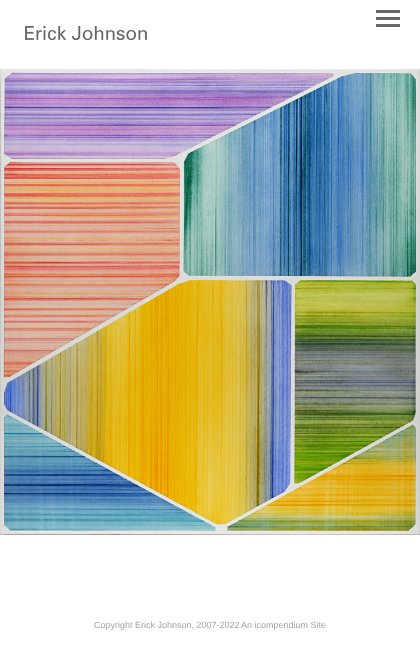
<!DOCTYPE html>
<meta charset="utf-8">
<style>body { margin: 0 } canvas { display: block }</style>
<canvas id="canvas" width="420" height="652"></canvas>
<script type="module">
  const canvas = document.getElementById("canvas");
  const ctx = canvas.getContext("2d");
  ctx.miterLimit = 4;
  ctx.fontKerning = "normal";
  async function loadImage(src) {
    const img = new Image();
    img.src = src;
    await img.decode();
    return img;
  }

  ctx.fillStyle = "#ffffff";
  ctx.fillRect(0, 0, 420, 652);
  ctx.fillStyle = "#666666";
  ctx.fillRect(376, 10, 24, 3);
  ctx.fillRect(376, 17, 24, 3);
  ctx.fillRect(376, 24, 24, 3);
  ctx.drawImage(await loadImage("img1.png"), 25, 26, 122, 14);
  ctx.drawImage(await loadImage("img2.png"), 0, 69, 420, 466);
  ctx.font = "9px Liberation Sans";
  ctx.fillStyle = "#a4a4a4";
  ctx.fillText("Copyright Erick Johnson, 2007-2022", 94, 628);
  ctx.fillText("An icompendium Site", 241, 628);
</script>
